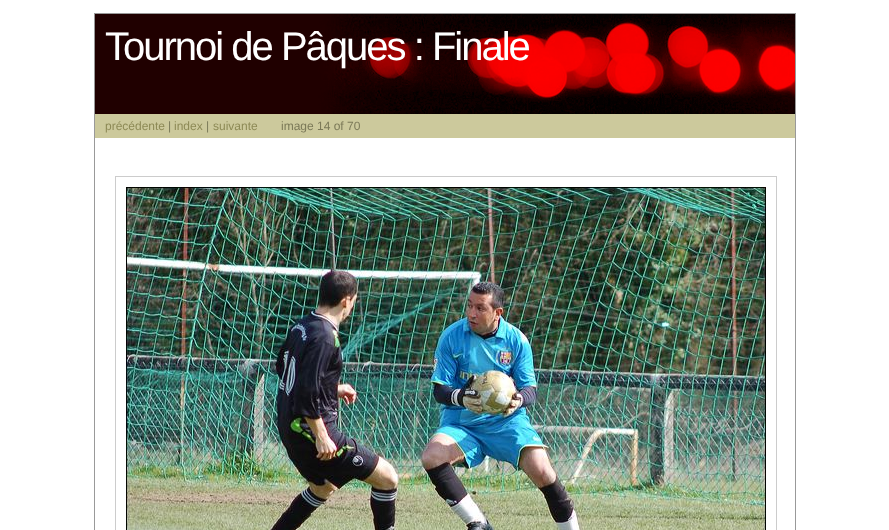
<!DOCTYPE html>
<meta charset="utf-8">
<style>body { margin: 0 } canvas { display: block }</style>
<canvas id="canvas" width="889" height="530"></canvas>
<script type="module">
  const canvas = document.getElementById("canvas");
  const ctx = canvas.getContext("2d");
  ctx.miterLimit = 4;
  ctx.fontKerning = "normal";
  async function loadImage(src) {
    const img = new Image();
    img.src = src;
    await img.decode();
    return img;
  }

  ctx.fillStyle = "#ffffff";
  ctx.fillRect(0, 0, 889, 530);
  ctx.strokeStyle = "#999999";
  ctx.strokeRect(94.5, 13.5, 701, 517);
  ctx.fillStyle = "#ff0000";
  ctx.fillRect(95, 14, 700, 100);
  ctx.drawImage(await loadImage("img1.png"), 95, 14, 700, 100);
  ctx.letterSpacing = "-2px";
  ctx.font = "40px Liberation Sans";
  ctx.fillStyle = "#ffffff";
  ctx.fillText("Tournoi de Pâques : Finale", 105, 60);
  ctx.fillStyle = "#ccc99c";
  ctx.fillRect(95, 114, 700, 24);
  ctx.letterSpacing = "0px";
  ctx.font = "12px Liberation Sans";
  ctx.fillStyle = "#8d8a56";
  ctx.fillText("précédente", 105, 130);
  ctx.fillStyle = "#7b7958";
  ctx.fillText("|", 168, 130);
  ctx.fillStyle = "#8d8a56";
  ctx.fillText("index", 174, 130);
  ctx.fillStyle = "#7b7958";
  ctx.fillText("|", 206, 130);
  ctx.fillStyle = "#8d8a56";
  ctx.fillText("suivante", 213, 130);
  ctx.fillStyle = "#7b7958";
  ctx.fillText("image 14 of 70", 281, 130);
  ctx.strokeStyle = "#cccccc";
  ctx.strokeRect(115.5, 176.5, 661, 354);
  ctx.drawImage(await loadImage("img2.png"), 126, 187, 640, 343);
</script>
